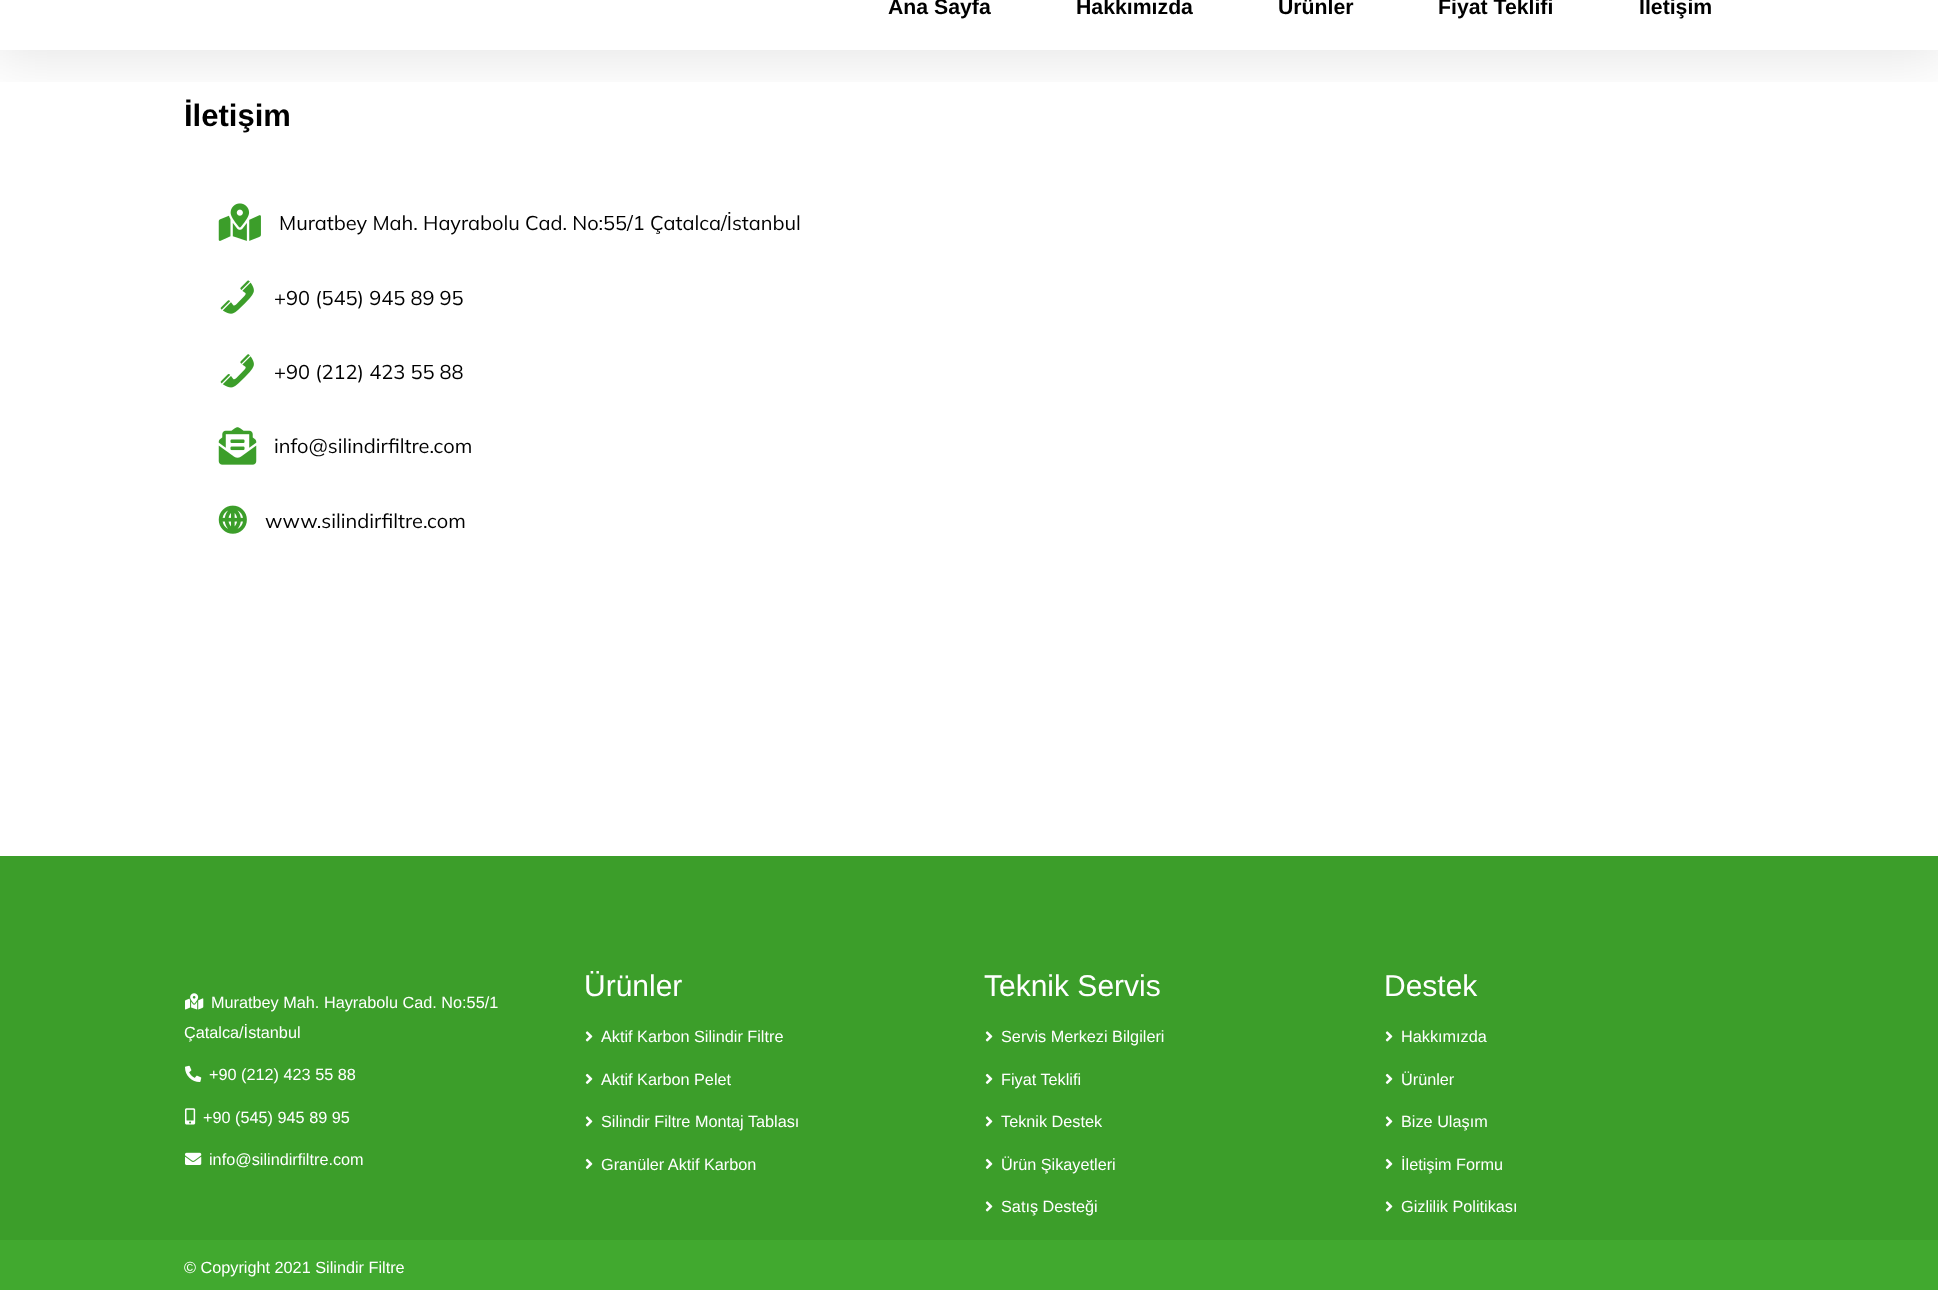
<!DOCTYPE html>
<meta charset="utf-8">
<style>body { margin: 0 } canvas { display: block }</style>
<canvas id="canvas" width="1938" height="1290"></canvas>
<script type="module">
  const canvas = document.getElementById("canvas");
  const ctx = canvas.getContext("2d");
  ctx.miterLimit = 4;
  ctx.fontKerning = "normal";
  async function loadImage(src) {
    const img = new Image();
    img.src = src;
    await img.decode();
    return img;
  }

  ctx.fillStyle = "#ffffff";
  ctx.fillRect(0, 0, 1938, 1290);
  ctx.save();
  ctx.beginPath();
  ctx.rect(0, 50, 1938, 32);
  ctx.clip();
  ctx.fillStyle = "rgba(0, 0, 0, 0.1)";
  ctx.filter = "blur(28px)";
  ctx.beginPath();
  ctx.rect(-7, -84, 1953, 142);
  ctx.fill();
  ctx.filter = "none";
  ctx.restore();
  ctx.font = "bold 21.25px Liberation Sans";
  ctx.fillStyle = "#000000";
  ctx.fillText("Ana Sayfa", 888, 14);
  ctx.fillText("Hakkımızda", 1076, 14);
  ctx.fillText("Ürünler", 1278, 14);
  ctx.fillText("Fiyat Teklifi", 1438, 14);
  ctx.fillText("İletişim", 1639, 14);
  ctx.font = "bold 31px Liberation Sans";
  ctx.fillText("İletişim", 184, 126);
  ctx.drawImage(await loadImage("img1.png"), 218, 203, 43, 38);
  ctx.font = "200 20px Mulish";
  ctx.fillText("Muratbey Mah. Hayrabolu Cad. No:55/1 Çatalca/İstanbul", 279, 230);
  ctx.drawImage(await loadImage("img2.png"), 220, 280, 34, 34);
  ctx.fillText("+90 (545) 945 89 95", 274, 305);
  ctx.drawImage(await loadImage("img3.png"), 220, 354, 34, 34);
  ctx.fillText("+90 (212) 423 55 88", 274, 379);
  ctx.drawImage(await loadImage("img4.png"), 218, 427, 39, 38);
  ctx.fillText("info@silindirfiltre.com", 274, 453);
  ctx.drawImage(await loadImage("img5.png"), 218, 505, 29, 29);
  ctx.fillText("www.silindirfiltre.com", 265, 528);
  ctx.fillStyle = "#3c9e2a";
  ctx.fillRect(0, 856, 1938, 384);
  ctx.drawImage(await loadImage("img6.png"), 185, 993, 19, 17);
  ctx.font = "16.25px Liberation Sans";
  ctx.fillStyle = "#ffffff";
  ctx.fillText("Muratbey Mah. Hayrabolu Cad. No:55/1", 211, 1008);
  ctx.fillText("Çatalca/İstanbul", 184, 1038);
  ctx.drawImage(await loadImage("img7.png"), 185, 1065, 17, 17);
  ctx.fillText("+90 (212) 423 55 88", 209, 1080);
  ctx.drawImage(await loadImage("img8.png"), 185, 1108, 11, 17);
  ctx.fillText("+90 (545) 945 89 95", 203, 1123);
  ctx.drawImage(await loadImage("img9.png"), 185, 1152, 17, 13);
  ctx.fillText("info@silindirfiltre.com", 209, 1165);
  ctx.font = "30px Liberation Sans";
  ctx.fillText("Ürünler", 584, 996);
  ctx.drawImage(await loadImage("img10.png"), 585, 1031, 8, 11);
  ctx.font = "16.25px Liberation Sans";
  ctx.fillText("Aktif Karbon Silindir Filtre", 601, 1042);
  ctx.drawImage(await loadImage("img11.png"), 585, 1073, 8, 11);
  ctx.fillText("Aktif Karbon Pelet", 601, 1085);
  ctx.drawImage(await loadImage("img10.png"), 585, 1116, 8, 11);
  ctx.fillText("Silindir Filtre Montaj Tablası", 601, 1127);
  ctx.drawImage(await loadImage("img11.png"), 585, 1158, 8, 11);
  ctx.fillText("Granüler Aktif Karbon", 601, 1170);
  ctx.font = "30px Liberation Sans";
  ctx.fillText("Teknik Servis", 984, 996);
  ctx.drawImage(await loadImage("img10.png"), 985, 1031, 8, 11);
  ctx.font = "16.25px Liberation Sans";
  ctx.fillText("Servis Merkezi Bilgileri", 1001, 1042);
  ctx.drawImage(await loadImage("img11.png"), 985, 1073, 8, 11);
  ctx.fillText("Fiyat Teklifi", 1001, 1085);
  ctx.drawImage(await loadImage("img10.png"), 985, 1116, 8, 11);
  ctx.fillText("Teknik Destek", 1001, 1127);
  ctx.drawImage(await loadImage("img11.png"), 985, 1158, 8, 11);
  ctx.fillText("Ürün Şikayetleri", 1001, 1170);
  ctx.drawImage(await loadImage("img10.png"), 985, 1201, 8, 11);
  ctx.fillText("Satış Desteği", 1001, 1212);
  ctx.font = "30px Liberation Sans";
  ctx.fillText("Destek", 1384, 996);
  ctx.drawImage(await loadImage("img10.png"), 1385, 1031, 8, 11);
  ctx.font = "16.25px Liberation Sans";
  ctx.fillText("Hakkımızda", 1401, 1042);
  ctx.drawImage(await loadImage("img11.png"), 1385, 1073, 8, 11);
  ctx.fillText("Ürünler", 1401, 1085);
  ctx.drawImage(await loadImage("img10.png"), 1385, 1116, 8, 11);
  ctx.fillText("Bize Ulaşım", 1401, 1127);
  ctx.drawImage(await loadImage("img11.png"), 1385, 1158, 8, 11);
  ctx.fillText("İletişim Formu", 1401, 1170);
  ctx.drawImage(await loadImage("img10.png"), 1385, 1201, 8, 11);
  ctx.fillText("Gizlilik Politikası", 1401, 1212);
  ctx.fillStyle = "#41a92f";
  ctx.fillRect(0, 1240, 1938, 50);
  ctx.fillStyle = "#ffffff";
  ctx.fillText("© Copyright 2021 Silindir Filtre", 184, 1273);
</script>
